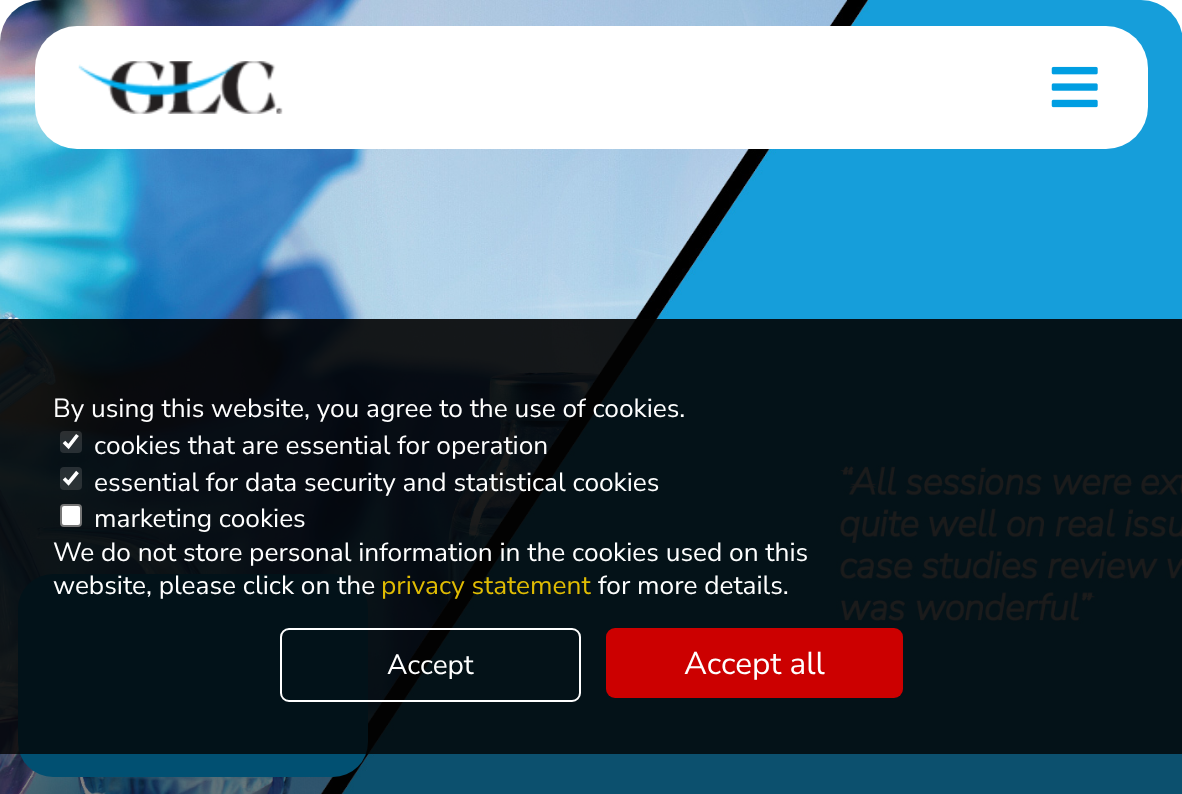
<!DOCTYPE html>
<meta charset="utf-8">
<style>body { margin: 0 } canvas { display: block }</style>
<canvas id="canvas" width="1182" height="794"></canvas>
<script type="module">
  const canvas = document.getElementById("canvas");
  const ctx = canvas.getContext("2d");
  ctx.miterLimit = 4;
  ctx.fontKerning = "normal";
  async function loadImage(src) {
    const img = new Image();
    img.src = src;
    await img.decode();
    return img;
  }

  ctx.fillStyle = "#ffffff";
  ctx.fillRect(0, 0, 1182, 794);
  ctx.drawImage(await loadImage("img1.png"), 0, 0, 1182, 794);
  ctx.beginPath();
  ctx.roundRect(35, 26, 1113, 123, 42);
  ctx.fill();
  ctx.drawImage(await loadImage("img2.png"), 78, 61, 205, 53);
  ctx.drawImage(await loadImage("img3.png"), 1051, 66, 47, 42);
  ctx.fillStyle = "#009ee2";
  ctx.beginPath();
  ctx.roundRect(18, 574, 350, 203, 35);
  ctx.fill();
  ctx.fillStyle = "rgba(1, 1, 1, 0.5)";
  ctx.fillRect(0, 319, 1182, 475);
  ctx.fillStyle = "rgba(3, 3, 3, 0.8)";
  ctx.fillRect(0, 319, 1182, 435);
  ctx.font = "26.25px Nunito Sans";
  ctx.fillStyle = "#ffffff";
  ctx.fillText("By using this website, you agree to the use of cookies.", 53, 417);
  ctx.fillStyle = "rgba(118, 118, 118, 0.3)";
  ctx.beginPath();
  ctx.roundRect(60, 431, 22, 22, 4);
  ctx.fill();
  ctx.beginPath();
  ctx.moveTo(64, 442);
  ctx.lineTo(68.5, 446.5);
  ctx.lineTo(77.5, 435);
  ctx.strokeStyle = "#ffffff";
  ctx.lineWidth = 3.6;
  ctx.stroke();
  ctx.fillStyle = "#ffffff";
  ctx.fillText("cookies that are essential for operation", 94, 454);
  ctx.fillStyle = "rgba(118, 118, 118, 0.3)";
  ctx.beginPath();
  ctx.roundRect(60, 467, 22, 23, 4);
  ctx.fill();
  ctx.beginPath();
  ctx.moveTo(64, 478.5);
  ctx.lineTo(68.5, 483);
  ctx.lineTo(77.5, 472);
  ctx.stroke();
  ctx.fillStyle = "#ffffff";
  ctx.fillText("essential for data security and statistical cookies", 94, 491);
  ctx.beginPath();
  ctx.roundRect(61, 505, 20, 21, 3);
  ctx.fill();
  ctx.strokeStyle = "#767676";
  ctx.lineWidth = 2;
  ctx.stroke();
  ctx.fillText("marketing cookies", 94, 527);
  ctx.fillText("We do not store personal information in the cookies used on this", 53, 561);
  ctx.fillText("website, please click on the", 53, 594);
  ctx.fillStyle = "#e0bc03";
  ctx.fillText("privacy statement", 381, 594);
  ctx.fillStyle = "#ffffff";
  ctx.fillText("for more details.", 598, 594);
  ctx.beginPath();
  ctx.roundRect(281, 629, 299, 72, 8);
  ctx.strokeStyle = "#ffffff";
  ctx.stroke();
  ctx.font = "28px Nunito Sans";
  ctx.fillText("Accept", 387, 674);
  ctx.fillStyle = "#cc0000";
  ctx.beginPath();
  ctx.roundRect(606, 628, 297, 70, 9);
  ctx.fill();
  ctx.font = "31.5px Nunito Sans";
  ctx.fillStyle = "#ffffff";
  ctx.fillText("Accept all", 684, 674);
</script>
